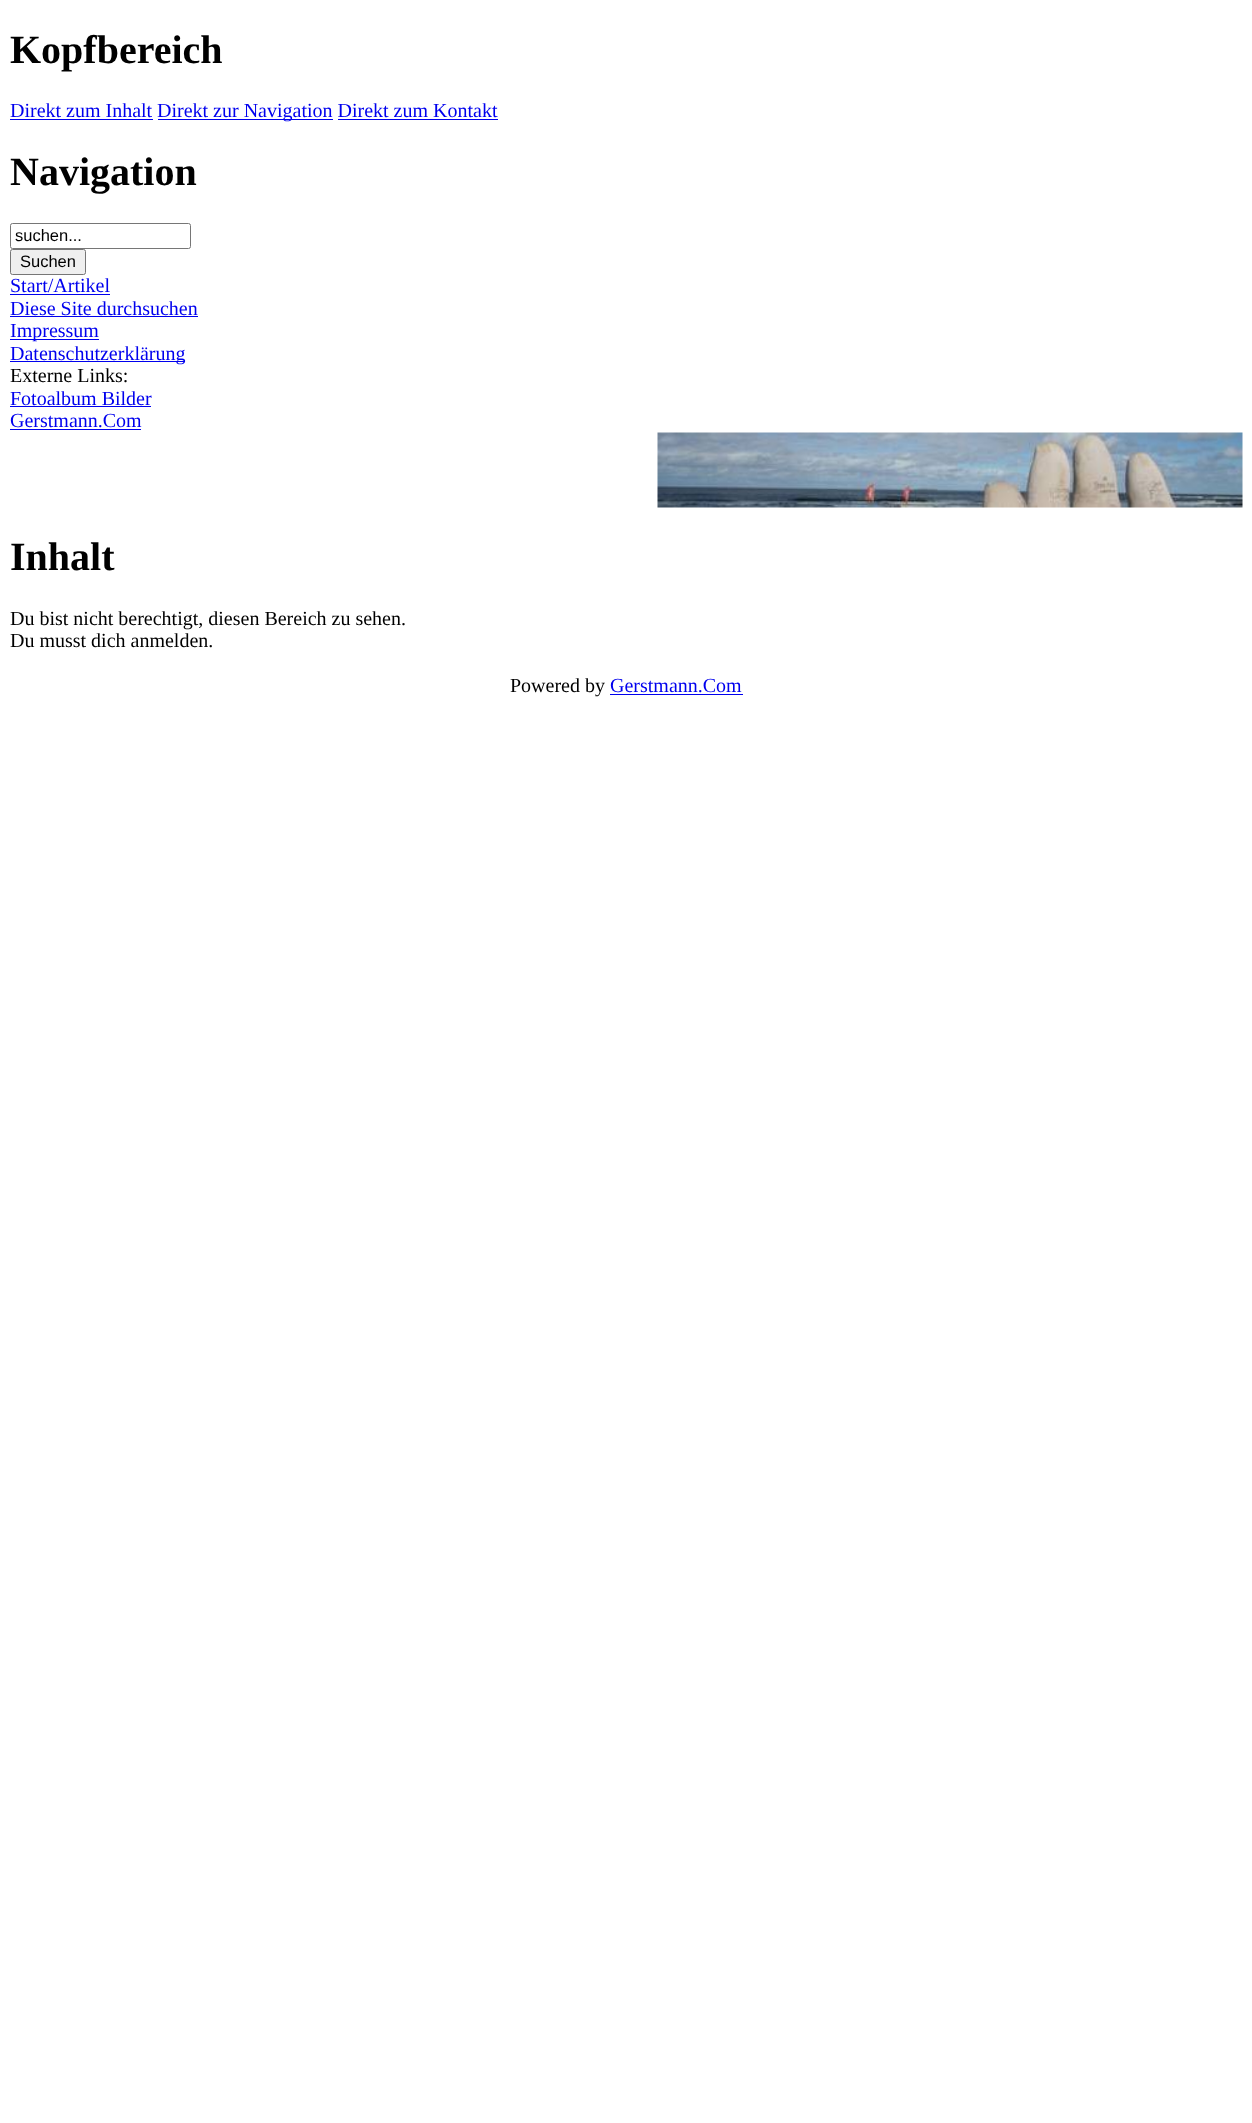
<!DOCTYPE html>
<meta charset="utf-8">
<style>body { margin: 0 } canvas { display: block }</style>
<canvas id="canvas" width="1252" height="2123"></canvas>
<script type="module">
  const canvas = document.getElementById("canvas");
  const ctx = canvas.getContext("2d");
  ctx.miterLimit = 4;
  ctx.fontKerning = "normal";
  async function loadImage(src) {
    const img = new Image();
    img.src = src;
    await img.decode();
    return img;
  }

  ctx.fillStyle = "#ffffff";
  ctx.fillRect(0, 0, 1252, 2123);
  ctx.font = "bold 40px Liberation Serif";
  ctx.fillStyle = "#000000";
  ctx.fillText("Kopfbereich", 10, 63);
  ctx.font = "20px Liberation Serif";
  ctx.fillStyle = "#0000ee";
  ctx.fillText("Direkt zum Inhalt", 10, 117);
  ctx.fillRect(10, 119, 143, 1);
  ctx.fillRect(158, 119, 175, 1);
  ctx.fillText("Direkt zur Navigation Direkt zum Kontakt", 157, 117);
  ctx.fillRect(338, 119, 160, 1);
  ctx.font = "bold 40px Liberation Serif";
  ctx.fillStyle = "#000000";
  ctx.fillText("Navigation", 10, 185);
  ctx.beginPath();
  ctx.roundRect(10.5, 223.5, 180, 25, 2);
  ctx.strokeStyle = "#767676";
  ctx.stroke();
  ctx.font = "16.5px Liberation Sans";
  ctx.fillText("suchen...", 15, 241);
  ctx.fillStyle = "#efefef";
  ctx.beginPath();
  ctx.roundRect(10.5, 249.5, 75, 25, 2);
  ctx.fill();
  ctx.stroke();
  ctx.fillStyle = "#000000";
  ctx.fillText("Suchen", 20, 267);
  ctx.font = "20px Liberation Serif";
  ctx.fillStyle = "#0000ee";
  ctx.fillText("Start/Artikel", 10, 292);
  ctx.fillRect(10, 294, 100, 1);
  ctx.fillText("Diese Site durchsuchen", 10, 315);
  ctx.fillRect(10, 316, 188, 1);
  ctx.fillRect(10, 339, 89, 1);
  ctx.fillText("Impressum", 10, 337);
  ctx.fillRect(10, 361, 175, 1);
  ctx.fillText("Datenschutzerklärung", 10, 360);
  ctx.fillStyle = "#000000";
  ctx.fillText("Externe Links:", 10, 382);
  ctx.fillStyle = "#0000ee";
  ctx.fillText("Fotoalbum Bilder", 10, 405);
  ctx.fillRect(10, 406, 141, 1);
  ctx.fillText("Gerstmann.Com", 10, 427);
  ctx.fillRect(10, 429, 131, 1);
  ctx.drawImage(await loadImage("img1.png"), 657, 432, 586, 76);
  ctx.font = "bold 40px Liberation Serif";
  ctx.fillStyle = "#000000";
  ctx.fillText("Inhalt", 10, 570);
  ctx.font = "20px Liberation Serif";
  ctx.fillText("Du bist nicht berechtigt, diesen Bereich zu sehen.", 10, 625);
  ctx.fillText("Du musst dich anmelden.", 10, 647);
  ctx.fillText("Powered by", 510, 692);
  ctx.fillStyle = "#0000ee";
  ctx.fillText("Gerstmann.Com", 610, 692);
  ctx.fillRect(610, 694, 133, 1);
</script>
